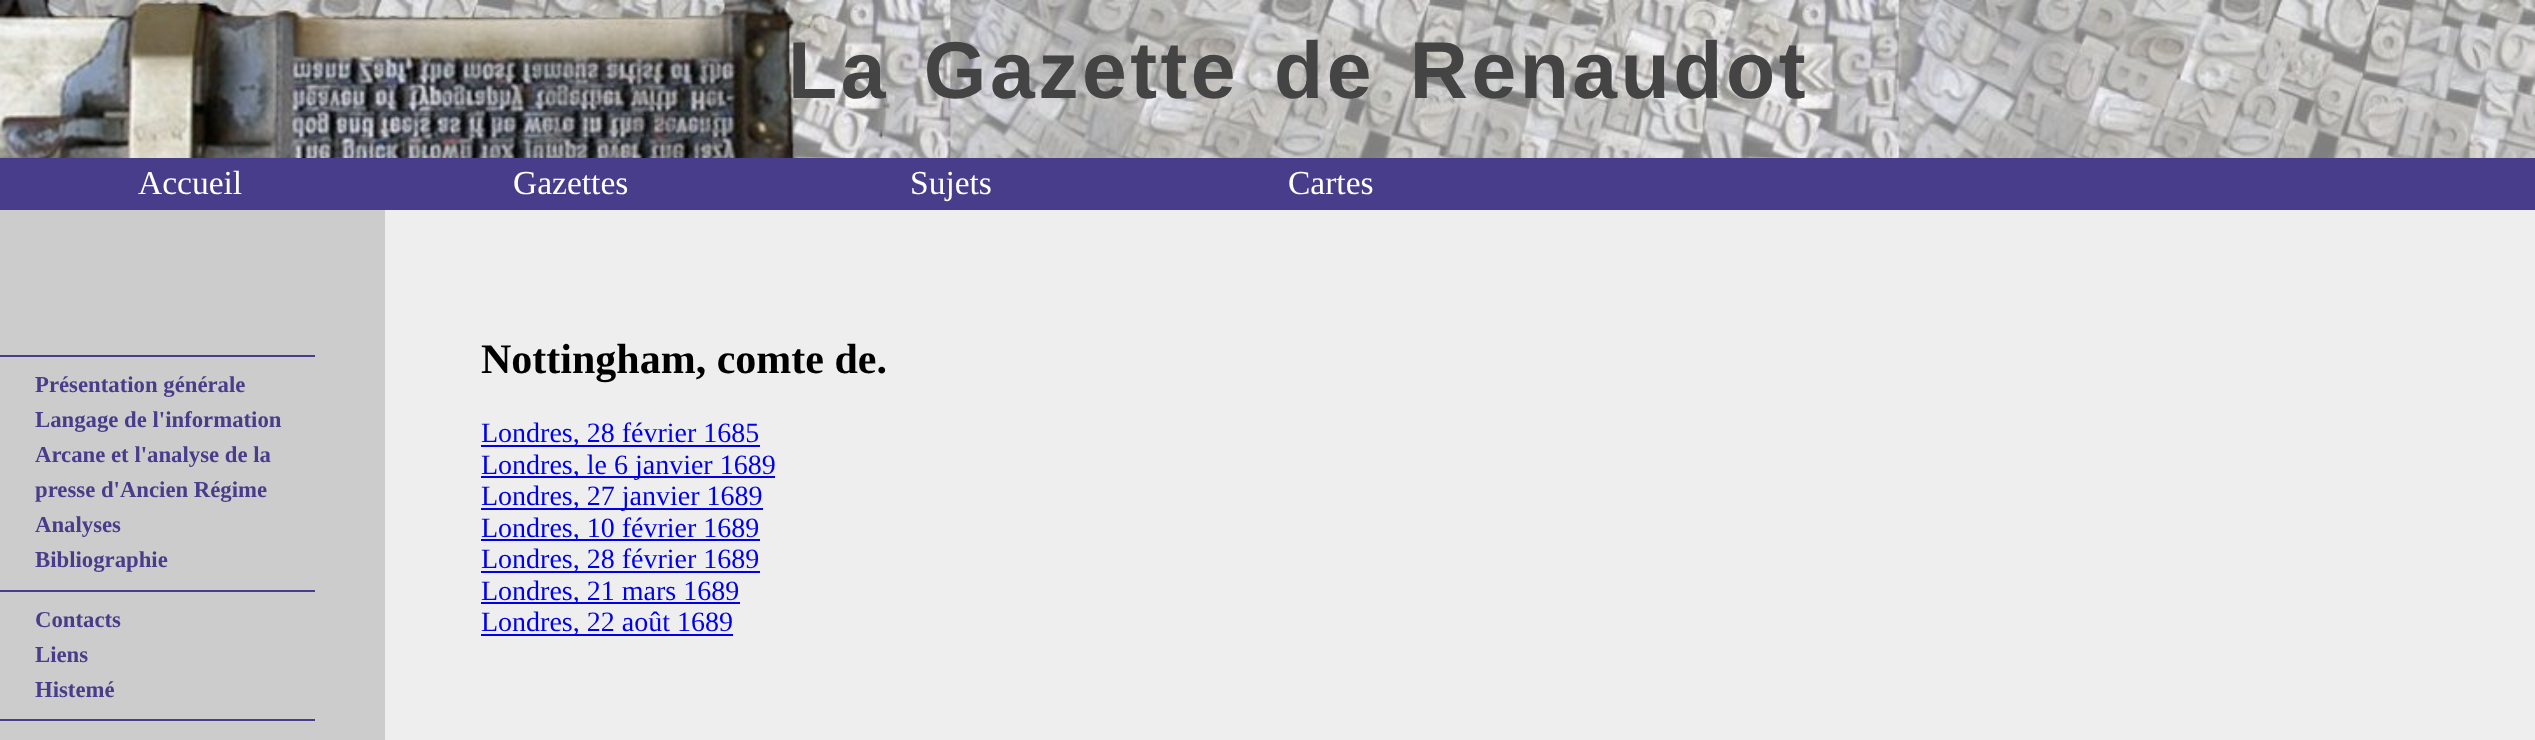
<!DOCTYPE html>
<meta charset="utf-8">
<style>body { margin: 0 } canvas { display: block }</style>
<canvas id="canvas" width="2535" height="740"></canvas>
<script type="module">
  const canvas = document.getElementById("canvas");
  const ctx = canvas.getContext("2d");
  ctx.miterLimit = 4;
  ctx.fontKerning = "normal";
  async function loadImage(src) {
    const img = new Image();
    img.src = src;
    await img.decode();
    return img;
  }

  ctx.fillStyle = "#eeeeee";
  ctx.fillRect(0, 0, 2535, 740);
  ctx.drawImage(await loadImage("img1.png"), 0, 0, 2535, 158);
  ctx.letterSpacing = "3.5px";
  ctx.wordSpacing = "9px";
  ctx.font = "bold 80.5px Liberation Sans";
  ctx.fillStyle = "#444444";
  ctx.fillText("La Gazette de Renaudot", 788, 98);
  ctx.fillStyle = "#483d8b";
  ctx.fillRect(0, 158, 2535, 52);
  ctx.letterSpacing = "0px";
  ctx.wordSpacing = "0px";
  ctx.font = "33.5px Liberation Serif";
  ctx.fillStyle = "#ffffff";
  ctx.fillText("Accueil", 138, 194);
  ctx.fillText("Gazettes", 513, 194);
  ctx.fillText("Sujets", 910, 194);
  ctx.fillText("Cartes", 1288, 194);
  ctx.fillStyle = "#cccccc";
  ctx.fillRect(0, 210, 385, 530);
  ctx.fillStyle = "#483d8b";
  ctx.fillRect(0, 355, 315, 2);
  ctx.font = "bold 22.75px Liberation Serif";
  ctx.fillText("Présentation générale", 35, 392);
  ctx.fillText("Langage de l'information", 35, 427);
  ctx.fillText("Arcane et l'analyse de la", 35, 462);
  ctx.fillText("presse d'Ancien Régime", 35, 497);
  ctx.fillText("Analyses", 35, 532);
  ctx.fillText("Bibliographie", 35, 567);
  ctx.fillRect(0, 590, 315, 2);
  ctx.fillText("Contacts", 35, 627);
  ctx.fillText("Liens", 35, 662);
  ctx.fillText("Histemé", 35, 697);
  ctx.fillRect(0, 719, 315, 2);
  ctx.font = "bold 42px Liberation Serif";
  ctx.fillStyle = "#000000";
  ctx.fillText("Nottingham, comte de.", 481, 373);
  ctx.fillStyle = "#0000ee";
  ctx.fillRect(481, 445, 279, 2);
  ctx.font = "28px Liberation Serif";
  ctx.fillText("Londres, 28 février 1685", 481, 442);
  ctx.fillRect(481, 476, 294, 2);
  ctx.fillText("Londres, le 6 janvier 1689", 481, 474);
  ctx.fillRect(481, 508, 282, 2);
  ctx.fillText("Londres, 27 janvier 1689", 481, 505);
  ctx.fillRect(481, 539, 279, 2);
  ctx.fillText("Londres, 10 février 1689", 481, 537);
  ctx.fillRect(481, 571, 279, 2);
  ctx.fillText("Londres, 28 février 1689", 481, 568);
  ctx.fillRect(481, 602, 259, 2);
  ctx.fillText("Londres, 21 mars 1689", 481, 600);
  ctx.fillRect(481, 634, 252, 2);
  ctx.fillText("Londres, 22 août 1689", 481, 631);
</script>
